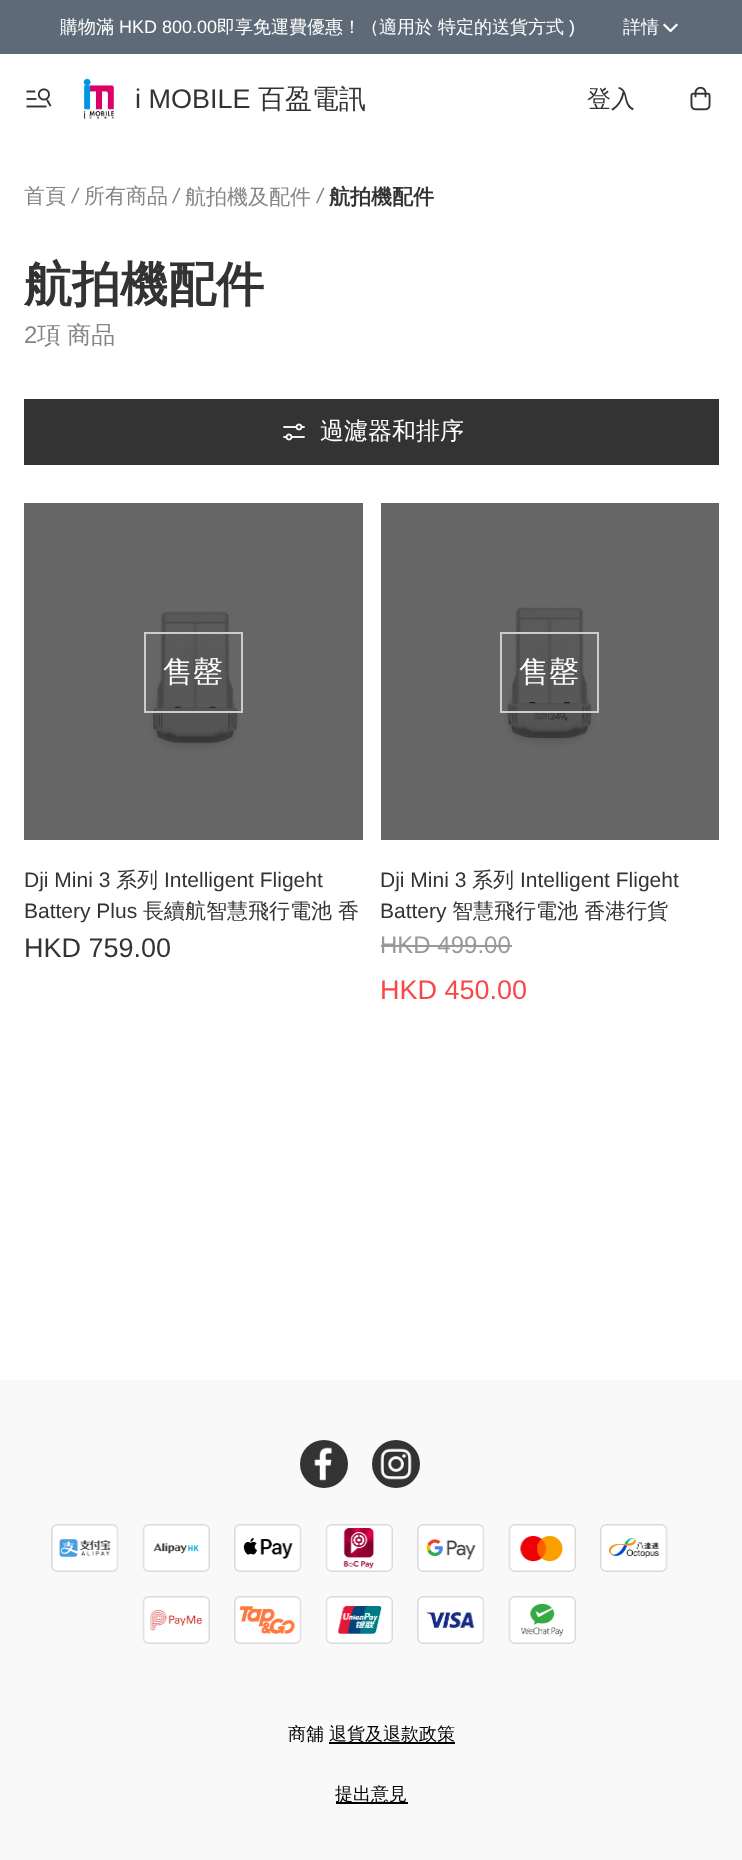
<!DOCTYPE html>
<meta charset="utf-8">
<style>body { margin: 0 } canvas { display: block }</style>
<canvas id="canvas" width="742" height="1860"></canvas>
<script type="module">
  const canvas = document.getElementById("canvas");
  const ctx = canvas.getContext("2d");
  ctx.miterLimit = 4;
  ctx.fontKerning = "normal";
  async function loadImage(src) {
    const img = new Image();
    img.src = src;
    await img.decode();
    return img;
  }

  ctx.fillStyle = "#ffffff";
  ctx.fillRect(0, 0, 742, 1860);
  ctx.fillStyle = "#666666";
  ctx.fillRect(381, 503, 338, 337);
  ctx.fillRect(24, 503, 339, 337);
  ctx.fillStyle = "#5f6a78";
  ctx.fillRect(0, 0, 742, 54);
  ctx.font = "500 18px WenQuanYi Zen Hei";
  ctx.fillStyle = "#ffffff";
  ctx.fillText("購物滿", 60, 33);
  ctx.font = "18px Liberation Sans";
  ctx.fillText("HKD 800.00", 119, 33);
  ctx.font = "500 18px WenQuanYi Zen Hei";
  ctx.fillText("即享免運費優惠！（適用於", 217, 33);
  ctx.fillText("特定的送貨方式", 438, 33);
  ctx.font = "18px Liberation Sans";
  ctx.fillText(")", 569, 33);
  ctx.font = "500 18px WenQuanYi Zen Hei";
  ctx.fillText("詳情", 623, 33);
  ctx.beginPath();
  ctx.moveTo(664.5, 25);
  ctx.lineTo(670.5, 31);
  ctx.lineTo(676.5, 25);
  ctx.strokeStyle = "#ffffff";
  ctx.lineWidth = 2.2;
  ctx.lineCap = "square";
  ctx.lineJoin = "round";
  ctx.stroke();
  ctx.drawImage(await loadImage("img1.png"), 26, 88, 26, 20);
  ctx.drawImage(await loadImage("img2.png"), 83, 78, 31, 42);
  ctx.font = "27px Liberation Sans";
  ctx.fillStyle = "#333333";
  ctx.fillText("i MOBILE", 135, 108);
  ctx.font = "500 27px WenQuanYi Zen Hei";
  ctx.fillText("百盈電訊", 258, 108);
  ctx.font = "500 24px WenQuanYi Zen Hei";
  ctx.fillText("登入", 587, 107);
  ctx.drawImage(await loadImage("img3.png"), 690, 86, 21, 25);
  ctx.font = "500 21px WenQuanYi Zen Hei";
  ctx.fillStyle = "#858585";
  ctx.fillText("首頁", 24, 203);
  ctx.font = "italic 21px Liberation Sans";
  ctx.fillText("/", 72, 203);
  ctx.font = "500 21px WenQuanYi Zen Hei";
  ctx.fillText("所有商品", 84, 203);
  ctx.font = "italic 21px Liberation Sans";
  ctx.fillText("/", 173, 203);
  ctx.font = "500 21px WenQuanYi Zen Hei";
  ctx.fillText("航拍機及配件", 185, 204);
  ctx.font = "italic 21px Liberation Sans";
  ctx.fillText("/", 317, 203);
  ctx.font = "bold 21px WenQuanYi Zen Hei";
  ctx.fillStyle = "#333333";
  ctx.fillText("航拍機配件", 329, 204);
  ctx.font = "bold 48px WenQuanYi Zen Hei";
  ctx.fillText("航拍機配件", 24, 301);
  ctx.font = "24px Liberation Sans";
  ctx.fillStyle = "#858585";
  ctx.fillText("2", 24, 343);
  ctx.wordSpacing = "-1px";
  ctx.font = "500 24px WenQuanYi Zen Hei";
  ctx.fillText("項 商品", 37, 343);
  ctx.fillStyle = "#333333";
  ctx.fillRect(24, 399, 695, 66);
  ctx.drawImage(await loadImage("img4.png"), 283, 423, 22, 18);
  ctx.wordSpacing = "0px";
  ctx.fillStyle = "#ffffff";
  ctx.fillText("過濾器和排序", 320, 439);
  ctx.drawImage(await loadImage("img5.png"), 149, 611, 91, 141);
  ctx.strokeStyle = "#cccccc";
  ctx.lineWidth = 2;
  ctx.lineJoin = "miter";
  ctx.strokeRect(145, 633, 97, 79);
  ctx.font = "500 30px WenQuanYi Zen Hei";
  ctx.fillText("售罄", 163, 682);
  ctx.font = "21px Liberation Sans";
  ctx.fillStyle = "#333333";
  ctx.fillText("Dji Mini 3", 24, 887);
  ctx.font = "500 21px WenQuanYi Zen Hei";
  ctx.fillText("系列", 116, 887);
  ctx.font = "21px Liberation Sans";
  ctx.fillText("Intelligent Fligeht", 164, 887);
  ctx.fillText("Battery Plus", 24, 918);
  ctx.font = "500 21px WenQuanYi Zen Hei";
  ctx.fillText("長續航智慧飛行電池", 143, 918);
  ctx.fillText("香", 338, 918);
  ctx.font = "27px Liberation Sans";
  ctx.fillText("HKD 759.00", 24, 957);
  ctx.drawImage(await loadImage("img6.png"), 503, 607, 91, 140);
  ctx.strokeRect(501, 633, 97, 79);
  ctx.font = "500 30px WenQuanYi Zen Hei";
  ctx.fillStyle = "#ffffff";
  ctx.fillText("售罄", 519, 682);
  ctx.font = "21px Liberation Sans";
  ctx.fillStyle = "#333333";
  ctx.fillText("Dji Mini 3", 380, 887);
  ctx.font = "500 21px WenQuanYi Zen Hei";
  ctx.fillText("系列", 472, 887);
  ctx.font = "21px Liberation Sans";
  ctx.fillText("Intelligent Fligeht", 520, 887);
  ctx.fillText("Battery", 380, 918);
  ctx.font = "500 21px WenQuanYi Zen Hei";
  ctx.fillText("智慧飛行電池 香港行貨", 452, 918);
  ctx.font = "24px Liberation Sans";
  ctx.fillStyle = "#999999";
  ctx.fillText("HKD 499.00", 380, 953);
  ctx.fillRect(381, 945, 131, 2);
  ctx.font = "27px Liberation Sans";
  ctx.fillStyle = "#fa4646";
  ctx.fillText("HKD 450.00", 380, 999);
  ctx.fillStyle = "#f9f9f9";
  ctx.fillRect(0, 1380, 742, 480);
  ctx.fillStyle = "#333333";
  ctx.beginPath();
  ctx.arc(324, 1464, 24, 0, Math.PI * 2);
  ctx.fill();
  ctx.drawImage(await loadImage("img7.png"), 314, 1447, 18, 34);
  ctx.beginPath();
  ctx.arc(396, 1464, 24, 0, Math.PI * 2);
  ctx.fill();
  ctx.drawImage(await loadImage("img8.png"), 380, 1448, 32, 32);
  ctx.drawImage(await loadImage("img9.png"), 51, 1524, 68, 48);
  ctx.drawImage(await loadImage("img10.png"), 142, 1524, 68, 48);
  ctx.drawImage(await loadImage("img11.png"), 234, 1524, 68, 48);
  ctx.drawImage(await loadImage("img12.png"), 325, 1524, 68, 48);
  ctx.drawImage(await loadImage("img13.png"), 417, 1524, 68, 48);
  ctx.drawImage(await loadImage("img14.png"), 508, 1524, 68, 48);
  ctx.drawImage(await loadImage("img15.png"), 600, 1524, 68, 48);
  ctx.drawImage(await loadImage("img16.png"), 142, 1596, 68, 48);
  ctx.drawImage(await loadImage("img17.png"), 234, 1596, 68, 48);
  ctx.drawImage(await loadImage("img18.png"), 325, 1596, 68, 48);
  ctx.drawImage(await loadImage("img19.png"), 417, 1596, 68, 48);
  ctx.drawImage(await loadImage("img20.png"), 508, 1596, 68, 48);
  ctx.font = "500 18px WenQuanYi Zen Hei";
  ctx.fillStyle = "#000000";
  ctx.fillText("商舖", 288, 1740);
  ctx.fillRect(329, 1742, 126, 2);
  ctx.fillText("退貨及退款政策", 329, 1740);
  ctx.fillRect(336, 1802, 72, 2);
  ctx.fillText("提出意見", 335, 1800);
</script>
